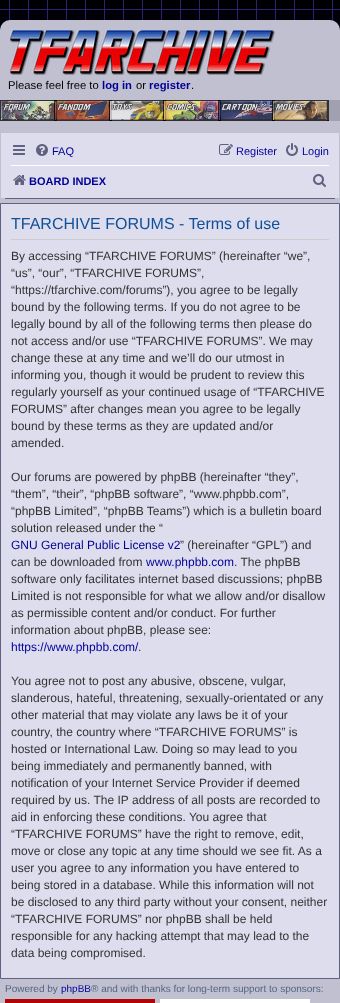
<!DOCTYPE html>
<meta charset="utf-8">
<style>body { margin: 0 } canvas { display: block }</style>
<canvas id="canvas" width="340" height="1003"></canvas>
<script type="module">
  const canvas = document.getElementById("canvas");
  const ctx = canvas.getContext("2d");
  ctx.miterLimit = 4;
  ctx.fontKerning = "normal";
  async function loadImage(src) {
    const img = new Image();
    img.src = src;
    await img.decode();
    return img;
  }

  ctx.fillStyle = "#ffffff";
  ctx.fillRect(0, 0, 340, 1003);
  ctx.drawImage(await loadImage("img1.png"), 0, 0, 340, 20);
  ctx.drawImage(await loadImage("img2.png"), 0, 20, 340, 10);
  ctx.fillStyle = "#c0c0d0";
  ctx.beginPath();
  ctx.roundRect(0, 20, 340, 80, [10, 10, 0, 0]);
  ctx.fill();
  ctx.drawImage(await loadImage("img3.png"), 10, 30, 265, 45);
  ctx.font = "11.25px Liberation Sans";
  ctx.fillStyle = "#000000";
  ctx.fillText("Please feel free to", 8, 89);
  ctx.font = "bold 11.25px Liberation Sans";
  ctx.fillStyle = "#000099";
  ctx.fillText("log in", 102, 89);
  ctx.font = "11.25px Liberation Sans";
  ctx.fillStyle = "#000000";
  ctx.fillText("or", 136, 89);
  ctx.font = "bold 11.25px Liberation Sans";
  ctx.fillStyle = "#000099";
  ctx.fillText("register", 149, 89);
  ctx.font = "11.25px Liberation Sans";
  ctx.fillStyle = "#000000";
  ctx.fillText(".", 191, 89);
  ctx.fillStyle = "#c0c0d0";
  ctx.fillRect(0, 121, 340, 882);
  ctx.fillStyle = "#a0a0b0";
  ctx.fillRect(1, 100, 339, 21);
  ctx.fillStyle = "#303035";
  ctx.fillRect(0, 100, 57, 1);
  ctx.fillRect(55, 100, 2, 21);
  ctx.fillRect(0, 120, 57, 1);
  ctx.fillRect(0, 100, 1, 21);
  ctx.drawImage(await loadImage("img4.png"), 1, 101, 54, 19);
  ctx.fillStyle = "rgba(0, 0, 0, 0.7)";
  ctx.fillRect(54, 100, 58, 1);
  ctx.fillStyle = "#303035";
  ctx.fillRect(110, 100, 2, 21);
  ctx.fillStyle = "rgba(0, 0, 0, 0.7)";
  ctx.fillRect(54, 120, 58, 1);
  ctx.fillRect(54, 100, 1, 21);
  ctx.drawImage(await loadImage("img5.png"), 55, 101, 55, 19);
  ctx.fillRect(109, 100, 57, 1);
  ctx.fillStyle = "#303035";
  ctx.fillRect(164, 100, 2, 21);
  ctx.fillStyle = "rgba(0, 0, 0, 0.7)";
  ctx.fillRect(109, 120, 57, 1);
  ctx.fillRect(109, 100, 1, 21);
  ctx.drawImage(await loadImage("img6.png"), 110, 101, 54, 19);
  ctx.fillRect(163, 100, 58, 1);
  ctx.fillStyle = "#303035";
  ctx.fillRect(219, 100, 2, 21);
  ctx.fillStyle = "rgba(0, 0, 0, 0.7)";
  ctx.fillRect(163, 120, 58, 1);
  ctx.fillRect(163, 100, 1, 21);
  ctx.drawImage(await loadImage("img7.png"), 164, 101, 55, 19);
  ctx.fillRect(218, 100, 57, 1);
  ctx.fillStyle = "#303035";
  ctx.fillRect(273, 100, 2, 21);
  ctx.fillStyle = "rgba(0, 0, 0, 0.7)";
  ctx.fillRect(218, 120, 57, 1);
  ctx.fillRect(218, 100, 1, 21);
  ctx.drawImage(await loadImage("img8.png"), 219, 101, 54, 19);
  ctx.fillRect(272, 100, 57, 1);
  ctx.fillStyle = "#303035";
  ctx.fillRect(327, 100, 2, 21);
  ctx.fillStyle = "rgba(0, 0, 0, 0.7)";
  ctx.fillRect(272, 120, 57, 1);
  ctx.fillRect(272, 100, 1, 21);
  ctx.drawImage(await loadImage("img9.png"), 273, 101, 54, 19);
  ctx.strokeStyle = "#606080";
  ctx.strokeRect(5.5, 137.5, 329, 61);
  ctx.fillStyle = "#ddddee";
  ctx.fillRect(1, 133, 338, 65);
  ctx.drawImage(await loadImage("img10.png"), 13, 145, 12, 10);
  ctx.drawImage(await loadImage("img11.png"), 36, 144, 12, 12);
  ctx.font = "11px Liberation Sans";
  ctx.fillStyle = "#000099";
  ctx.fillText("FAQ", 52, 155);
  ctx.drawImage(await loadImage("img12.png"), 219, 144, 14, 11);
  ctx.fillText("Register", 236, 155);
  ctx.drawImage(await loadImage("img13.png"), 286, 143, 12, 13);
  ctx.fillText("Login", 302, 155);
  ctx.fillStyle = "#ffffff";
  ctx.fillRect(11, 165, 318, 1);
  ctx.drawImage(await loadImage("img14.png"), 13, 175, 13, 10);
  ctx.font = "bold 11px Liberation Sans";
  ctx.fillStyle = "#000099";
  ctx.fillText("BOARD INDEX", 29, 185);
  ctx.drawImage(await loadImage("img15.png"), 313, 174, 13, 13);
  ctx.fillStyle = "#ddddee";
  ctx.beginPath();
  ctx.rect(0.5, 203.5, 339, 775);
  ctx.fill();
  ctx.stroke();
  ctx.fillStyle = "#cccccc";
  ctx.fillRect(11, 239, 318, 1);
  ctx.font = "16px Liberation Sans";
  ctx.fillStyle = "#115098";
  ctx.fillText("TFARCHIVE FORUMS - Terms of use", 11, 229);
  ctx.font = "12px Liberation Sans";
  ctx.fillStyle = "#333333";
  ctx.fillText("By accessing “TFARCHIVE FORUMS” (hereinafter “we”,", 11, 260);
  ctx.fillText("“us”, “our”, “TFARCHIVE FORUMS”,", 11, 277);
  ctx.fillText("“https://tfarchive.com/forums”), you agree to be legally", 11, 294);
  ctx.fillText("bound by the following terms. If you do not agree to be", 11, 311);
  ctx.fillText("legally bound by all of the following terms then please do", 11, 328);
  ctx.fillText("not access and/or use “TFARCHIVE FORUMS”. We may", 11, 345);
  ctx.fillText("change these at any time and we’ll do our utmost in", 11, 362);
  ctx.fillText("informing you, though it would be prudent to review this", 11, 379);
  ctx.fillText("regularly yourself as your continued usage of “TFARCHIVE", 11, 396);
  ctx.fillText("FORUMS” after changes mean you agree to be legally", 11, 413);
  ctx.fillText("bound by these terms as they are updated and/or", 11, 430);
  ctx.fillText("amended.", 11, 447);
  ctx.fillText("Our forums are powered by phpBB (hereinafter “they”,", 11, 481);
  ctx.fillText("“them”, “their”, “phpBB software”, “www.phpbb.com”,", 11, 498);
  ctx.fillText("“phpBB Limited”, “phpBB Teams”) which is a bulletin board", 11, 515);
  ctx.fillText("solution released under the “", 11, 532);
  ctx.fillStyle = "#000099";
  ctx.fillText("GNU General Public License v2", 11, 549);
  ctx.fillStyle = "#333333";
  ctx.fillText("” (hereinafter “GPL”) and", 180, 549);
  ctx.fillText("can be downloaded from", 11, 566);
  ctx.fillStyle = "#000099";
  ctx.fillText("www.phpbb.com", 146, 566);
  ctx.fillStyle = "#333333";
  ctx.fillText(". The phpBB", 234, 566);
  ctx.fillText("software only facilitates internet based discussions; phpBB", 11, 583);
  ctx.fillText("Limited is not responsible for what we allow and/or disallow", 11, 600);
  ctx.fillText("as permissible content and/or conduct. For further", 11, 617);
  ctx.fillText("information about phpBB, please see:", 11, 634);
  ctx.fillStyle = "#000099";
  ctx.fillText("https://www.phpbb.com/", 11, 651);
  ctx.fillStyle = "#333333";
  ctx.fillText(".", 138, 651);
  ctx.fillText("You agree not to post any abusive, obscene, vulgar,", 11, 685);
  ctx.fillText("slanderous, hateful, threatening, sexually-orientated or any", 11, 702);
  ctx.fillText("other material that may violate any laws be it of your", 11, 719);
  ctx.fillText("country, the country where “TFARCHIVE FORUMS” is", 11, 736);
  ctx.fillText("hosted or International Law. Doing so may lead to you", 11, 753);
  ctx.fillText("being immediately and permanently banned, with", 11, 770);
  ctx.fillText("notification of your Internet Service Provider if deemed", 11, 787);
  ctx.fillText("required by us. The IP address of all posts are recorded to", 11, 804);
  ctx.fillText("aid in enforcing these conditions. You agree that", 11, 821);
  ctx.fillText("“TFARCHIVE FORUMS” have the right to remove, edit,", 11, 838);
  ctx.fillText("move or close any topic at any time should we see fit. As a", 11, 855);
  ctx.fillText("user you agree to any information you have entered to", 11, 872);
  ctx.fillText("being stored in a database. While this information will not", 11, 889);
  ctx.fillText("be disclosed to any third party without your consent, neither", 11, 906);
  ctx.fillText("“TFARCHIVE FORUMS” nor phpBB shall be held", 11, 923);
  ctx.fillText("responsible for any hacking attempt that may lead to the", 11, 940);
  ctx.fillText("data being compromised.", 11, 957);
  ctx.font = "10px Liberation Sans";
  ctx.fillStyle = "#536482";
  ctx.fillText("Powered by", 5, 992);
  ctx.fillStyle = "#000099";
  ctx.fillText("phpBB", 61, 992);
  ctx.fillStyle = "#536482";
  ctx.fillText("® and with thanks for long-term support to sponsors:", 91, 992);
  ctx.fillStyle = "#b30303";
  ctx.fillRect(5, 999, 150, 4);
  ctx.fillStyle = "#ffffff";
  ctx.fillRect(160, 999, 150, 4);
</script>
